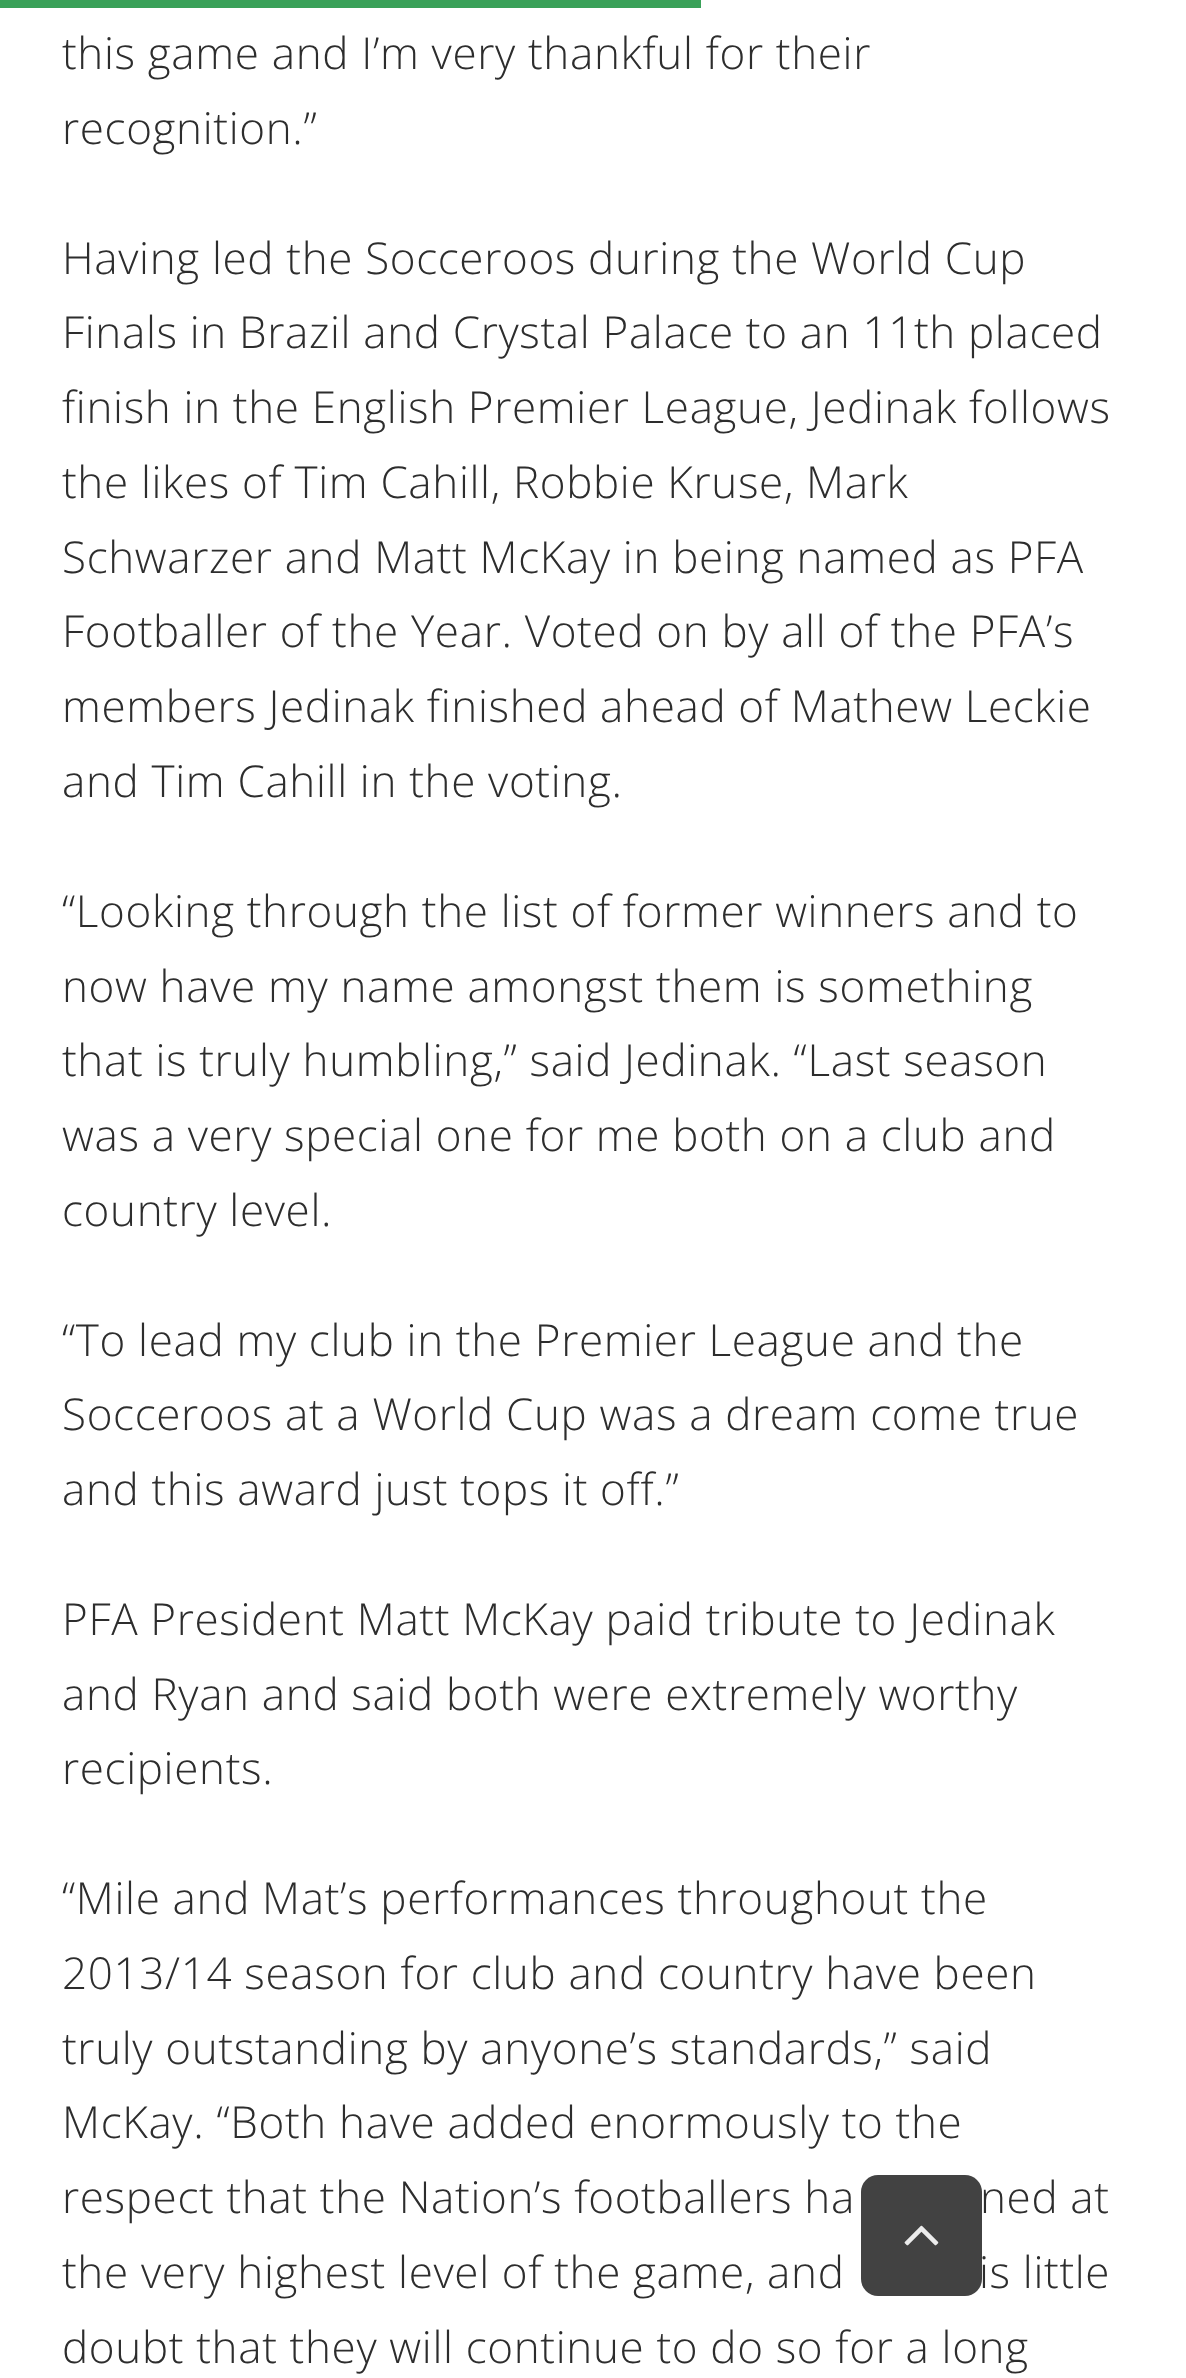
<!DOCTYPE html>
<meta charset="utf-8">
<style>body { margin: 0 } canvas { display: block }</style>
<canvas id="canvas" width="1186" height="2378"></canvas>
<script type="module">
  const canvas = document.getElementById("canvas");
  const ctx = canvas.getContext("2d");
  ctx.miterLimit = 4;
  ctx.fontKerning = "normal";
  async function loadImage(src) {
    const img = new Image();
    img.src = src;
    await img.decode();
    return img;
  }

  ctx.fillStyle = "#ffffff";
  ctx.fillRect(0, 0, 1186, 2378);
  ctx.fillStyle = "#3aa159";
  ctx.fillRect(0, 0, 701, 8);
  ctx.letterSpacing = "0.65px";
  ctx.font = "300 44px Open Sans";
  ctx.fillStyle = "#2d2d2d";
  ctx.fillText("this game and I’m very thankful for their", 62, 69);
  ctx.fillText("recognition.”", 62, 144);
  ctx.fillText("Having led the Socceroos during the World Cup", 62, 274);
  ctx.fillText("Finals in Brazil and Crystal Palace to an 11th placed", 62, 348);
  ctx.fillText("finish in the English Premier League, Jedinak follows", 62, 423);
  ctx.fillText("the likes of Tim Cahill, Robbie Kruse, Mark", 62, 498);
  ctx.fillText("Schwarzer and Matt McKay in being named as PFA", 62, 573);
  ctx.fillText("Footballer of the Year. Voted on by all of the PFA’s", 62, 647);
  ctx.fillText("members Jedinak finished ahead of Mathew Leckie", 62, 722);
  ctx.fillText("and Tim Cahill in the voting.", 62, 797);
  ctx.fillText("“Looking through the list of former winners and to", 62, 927);
  ctx.fillText("now have my name amongst them is something", 62, 1002);
  ctx.fillText("that is truly humbling,” said Jedinak. “Last season", 62, 1076);
  ctx.fillText("was a very special one for me both on a club and", 62, 1151);
  ctx.fillText("country level.", 62, 1226);
  ctx.fillText("“To lead my club in the Premier League and the", 62, 1356);
  ctx.fillText("Socceroos at a World Cup was a dream come true", 62, 1430);
  ctx.fillText("and this award just tops it off.”", 62, 1505);
  ctx.fillText("PFA President Matt McKay paid tribute to Jedinak", 62, 1635);
  ctx.fillText("and Ryan and said both were extremely worthy", 62, 1710);
  ctx.fillText("recipients.", 62, 1784);
  ctx.fillText("“Mile and Mat’s performances throughout the", 62, 1914);
  ctx.fillText("2013/14 season for club and country have been", 62, 1989);
  ctx.fillText("truly outstanding by anyone’s standards,” said", 62, 2064);
  ctx.fillText("McKay. “Both have added enormously to the", 62, 2138);
  ctx.fillText("respect that the Nation’s footballers ha", 62, 2213);
  ctx.fillText("ned at", 980, 2213);
  ctx.fillText("the very highest level of the game, and", 62, 2288);
  ctx.fillText("is little", 979, 2288);
  ctx.fillText("doubt that they will continue to do so for a long", 62, 2363);
  ctx.fillStyle = "rgba(45, 45, 45, 0.9)";
  ctx.beginPath();
  ctx.roundRect(861, 2175, 121, 121, 17);
  ctx.fill();
  ctx.drawImage(await loadImage("img1.png"), 904, 2225, 35, 21);
</script>
